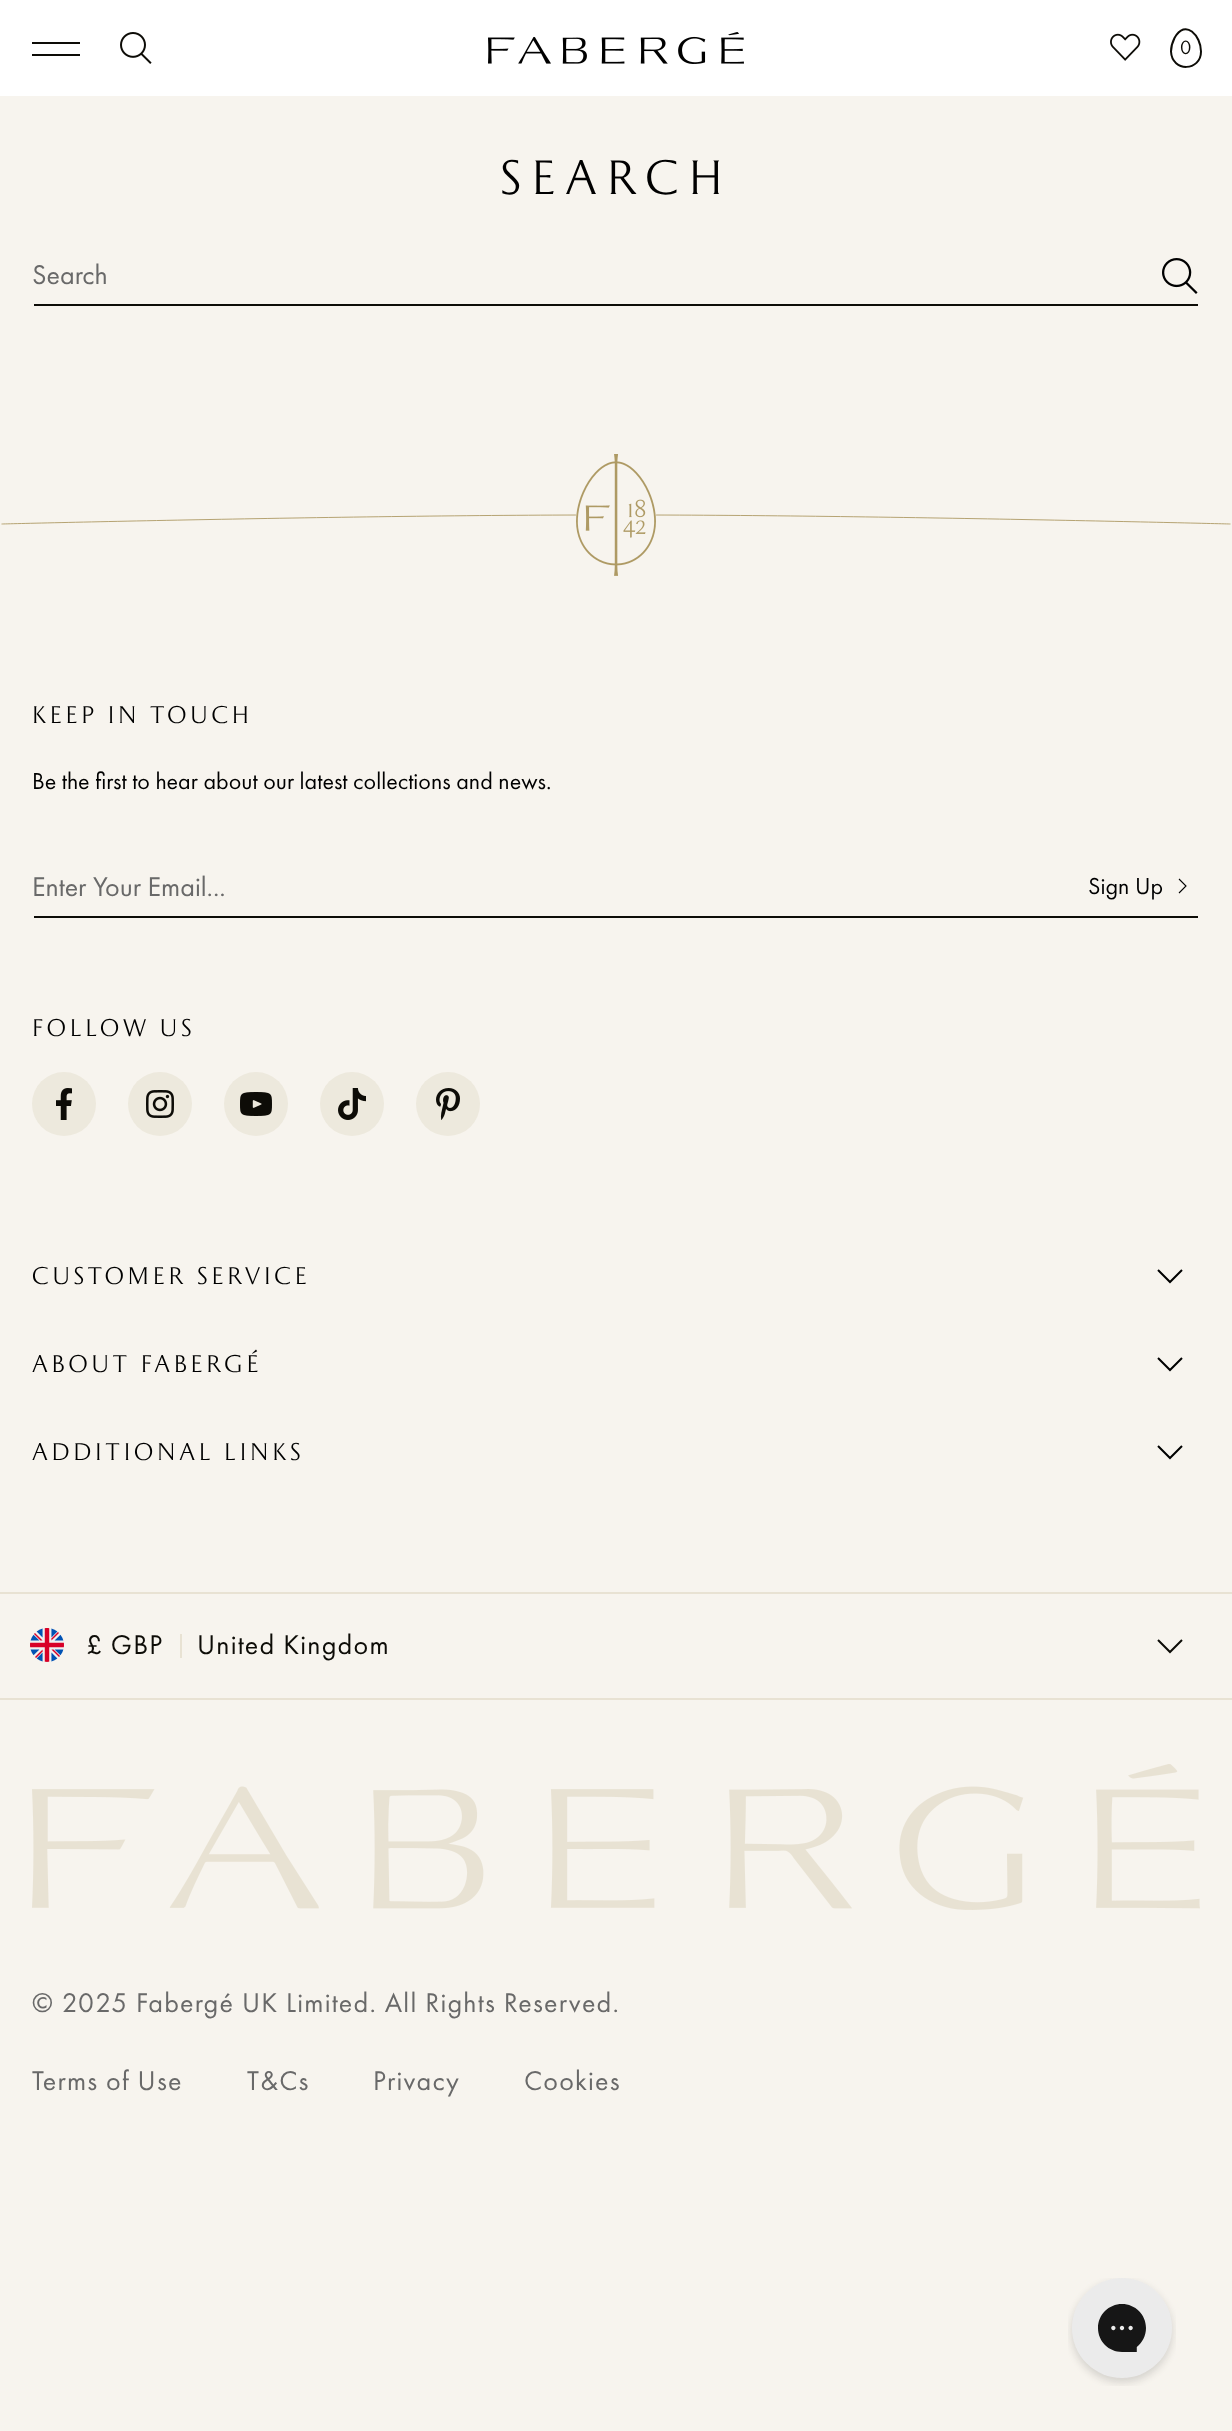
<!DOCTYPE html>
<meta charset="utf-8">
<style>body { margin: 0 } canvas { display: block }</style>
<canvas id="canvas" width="1232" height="2431"></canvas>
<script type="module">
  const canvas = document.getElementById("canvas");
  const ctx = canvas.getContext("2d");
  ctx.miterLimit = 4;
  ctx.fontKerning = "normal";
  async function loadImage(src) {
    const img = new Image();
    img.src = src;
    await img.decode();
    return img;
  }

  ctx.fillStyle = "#f7f4ee";
  ctx.fillRect(0, 0, 1232, 2431);
  ctx.fillStyle = "#ffffff";
  ctx.fillRect(0, 0, 1232, 96);
  ctx.fillStyle = "#0d0c07";
  ctx.beginPath();
  ctx.moveTo(32, 44);
  ctx.lineTo(80, 44);
  ctx.lineTo(80, 42);
  ctx.lineTo(32, 42);
  ctx.closePath();
  ctx.moveTo(32, 56);
  ctx.lineTo(80, 56);
  ctx.lineTo(80, 54);
  ctx.lineTo(32, 54);
  ctx.closePath();
  ctx.fill("evenodd");
  ctx.drawImage(await loadImage("img1.png"), 120, 32, 32, 32);
  ctx.drawImage(await loadImage("img2.png"), 488, 32, 256, 32);
  ctx.drawImage(await loadImage("img3.png"), 1110, 33, 31, 28);
  ctx.beginPath();
  ctx.moveTo(1201, 51.5);
  ctx.bezierCurveTo(1201, 36, 1185.5, 18, 1174.5, 38);
  ctx.bezierCurveTo(1172.5, 42, 1171, 47, 1171, 51.5);
  ctx.bezierCurveTo(1172, 72.5, 1201, 71.5, 1201, 51.5);
  ctx.closePath();
  ctx.strokeStyle = "#0d0c07";
  ctx.lineWidth = 2;
  ctx.stroke();
  ctx.font = "20px Futura PT";
  ctx.fillText("0", 1180, 54);
  ctx.letterSpacing = "10px";
  ctx.font = "48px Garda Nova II";
  ctx.fillStyle = "#000000";
  ctx.fillText("SEARCH", 500, 194);
  ctx.letterSpacing = "0px";
  ctx.font = "28px Futura PT";
  ctx.fillStyle = "#696969";
  ctx.fillText("Search", 32, 284);
  ctx.drawImage(await loadImage("img4.png"), 1162, 258, 36, 36);
  ctx.fillStyle = "#0d0c07";
  ctx.fillRect(34, 304, 1164, 2);
  ctx.beginPath();
  ctx.moveTo(1.5, 524);
  ctx.bezierCurveTo(1.5, 524, 358.5, 515, 598.5, 515);
  ctx.moveTo(1230.5, 524);
  ctx.bezierCurveTo(1230.5, 524, 873.5, 515, 633.5, 515);
  ctx.strokeStyle = "#ae9a64";
  ctx.lineWidth = 0.9;
  ctx.stroke();
  ctx.fillStyle = "#f7f4ee";
  ctx.fillRect(576, 514, 80, 2);
  ctx.drawImage(await loadImage("img5.png"), 576, 454, 80, 122);
  ctx.letterSpacing = "3.8px";
  ctx.font = "24px Garda Nova II";
  ctx.fillStyle = "#000000";
  ctx.fillText("Keep In Touch", 32, 723);
  ctx.letterSpacing = "0px";
  ctx.font = "24px Futura PT";
  ctx.fillText("Be the first to hear about our latest collections and news.", 32, 789);
  ctx.font = "28px Futura PT";
  ctx.fillStyle = "#696969";
  ctx.fillText("Enter Your Email...", 32, 896);
  ctx.font = "24px Futura PT";
  ctx.fillStyle = "#000000";
  ctx.fillText("Sign Up", 1088, 894);
  ctx.beginPath();
  ctx.moveTo(1179, 879);
  ctx.lineTo(1186, 886);
  ctx.lineTo(1179, 893);
  ctx.strokeStyle = "#000000";
  ctx.lineWidth = 1.1;
  ctx.stroke();
  ctx.fillStyle = "#0d0c07";
  ctx.fillRect(34, 916, 1164, 2);
  ctx.letterSpacing = "3.8px";
  ctx.font = "24px Garda Nova II";
  ctx.fillStyle = "#000000";
  ctx.fillText("Follow Us", 32, 1036);
  ctx.fillStyle = "#ede9dd";
  ctx.beginPath();
  ctx.arc(64, 1104, 32, 0, Math.PI * 2);
  ctx.fill();
  ctx.drawImage(await loadImage("img6.png"), 56, 1088, 16, 32);
  ctx.beginPath();
  ctx.arc(160, 1104, 32, 0, Math.PI * 2);
  ctx.fill();
  ctx.drawImage(await loadImage("img7.png"), 146, 1090, 28, 28);
  ctx.beginPath();
  ctx.arc(256, 1104, 32, 0, Math.PI * 2);
  ctx.fill();
  ctx.drawImage(await loadImage("img8.png"), 240, 1092, 32, 24);
  ctx.beginPath();
  ctx.arc(352, 1104, 32, 0, Math.PI * 2);
  ctx.fill();
  ctx.drawImage(await loadImage("img9.png"), 338, 1088, 28, 32);
  ctx.beginPath();
  ctx.arc(448, 1104, 32, 0, Math.PI * 2);
  ctx.fill();
  ctx.drawImage(await loadImage("img10.png"), 436, 1088, 24, 32);
  ctx.fillStyle = "#000000";
  ctx.fillText("CUSTOMER SERVICE", 32, 1284);
  ctx.beginPath();
  ctx.moveTo(1182, 1270);
  ctx.lineTo(1170, 1282);
  ctx.lineTo(1158, 1270);
  ctx.lineWidth = 2;
  ctx.stroke();
  ctx.fillText("ABOUT FABERGÉ", 32, 1372);
  ctx.beginPath();
  ctx.moveTo(1182, 1358);
  ctx.lineTo(1170, 1370);
  ctx.lineTo(1158, 1358);
  ctx.stroke();
  ctx.fillText("ADDITIONAL LINKS", 32, 1460);
  ctx.beginPath();
  ctx.moveTo(1182, 1446);
  ctx.lineTo(1170, 1458);
  ctx.lineTo(1158, 1446);
  ctx.stroke();
  ctx.fillStyle = "#e8e2d3";
  ctx.fillRect(0, 1592, 1232, 2);
  ctx.fillRect(0, 1698, 1232, 2);
  ctx.drawImage(await loadImage("img11.png"), 30, 1628, 34, 34);
  ctx.letterSpacing = "1.2px";
  ctx.font = "28px Futura PT";
  ctx.fillStyle = "#0d0c07";
  ctx.fillText("£ GBP", 86, 1654);
  ctx.fillStyle = "#e8e2d3";
  ctx.fillRect(180, 1634, 2, 24);
  ctx.fillStyle = "#0d0c07";
  ctx.fillText("United Kingdom", 197, 1654);
  ctx.beginPath();
  ctx.moveTo(1182, 1640);
  ctx.lineTo(1170, 1652);
  ctx.lineTo(1158, 1640);
  ctx.strokeStyle = "#0d0c07";
  ctx.stroke();
  ctx.drawImage(await loadImage("img12.png"), 32, 1764, 1168, 146);
  ctx.fillStyle = "#696969";
  ctx.fillText("© 2025 Fabergé UK Limited. All Rights Reserved.", 32, 2012);
  ctx.fillText("Terms of Use", 32, 2090);
  ctx.fillText("T&Cs", 247, 2090);
  ctx.fillText("Privacy", 373, 2090);
  ctx.fillText("Cookies", 524, 2090);
  ctx.drawImage(await loadImage("img13.png"), 1068, 2278, 108, 108);
</script>
